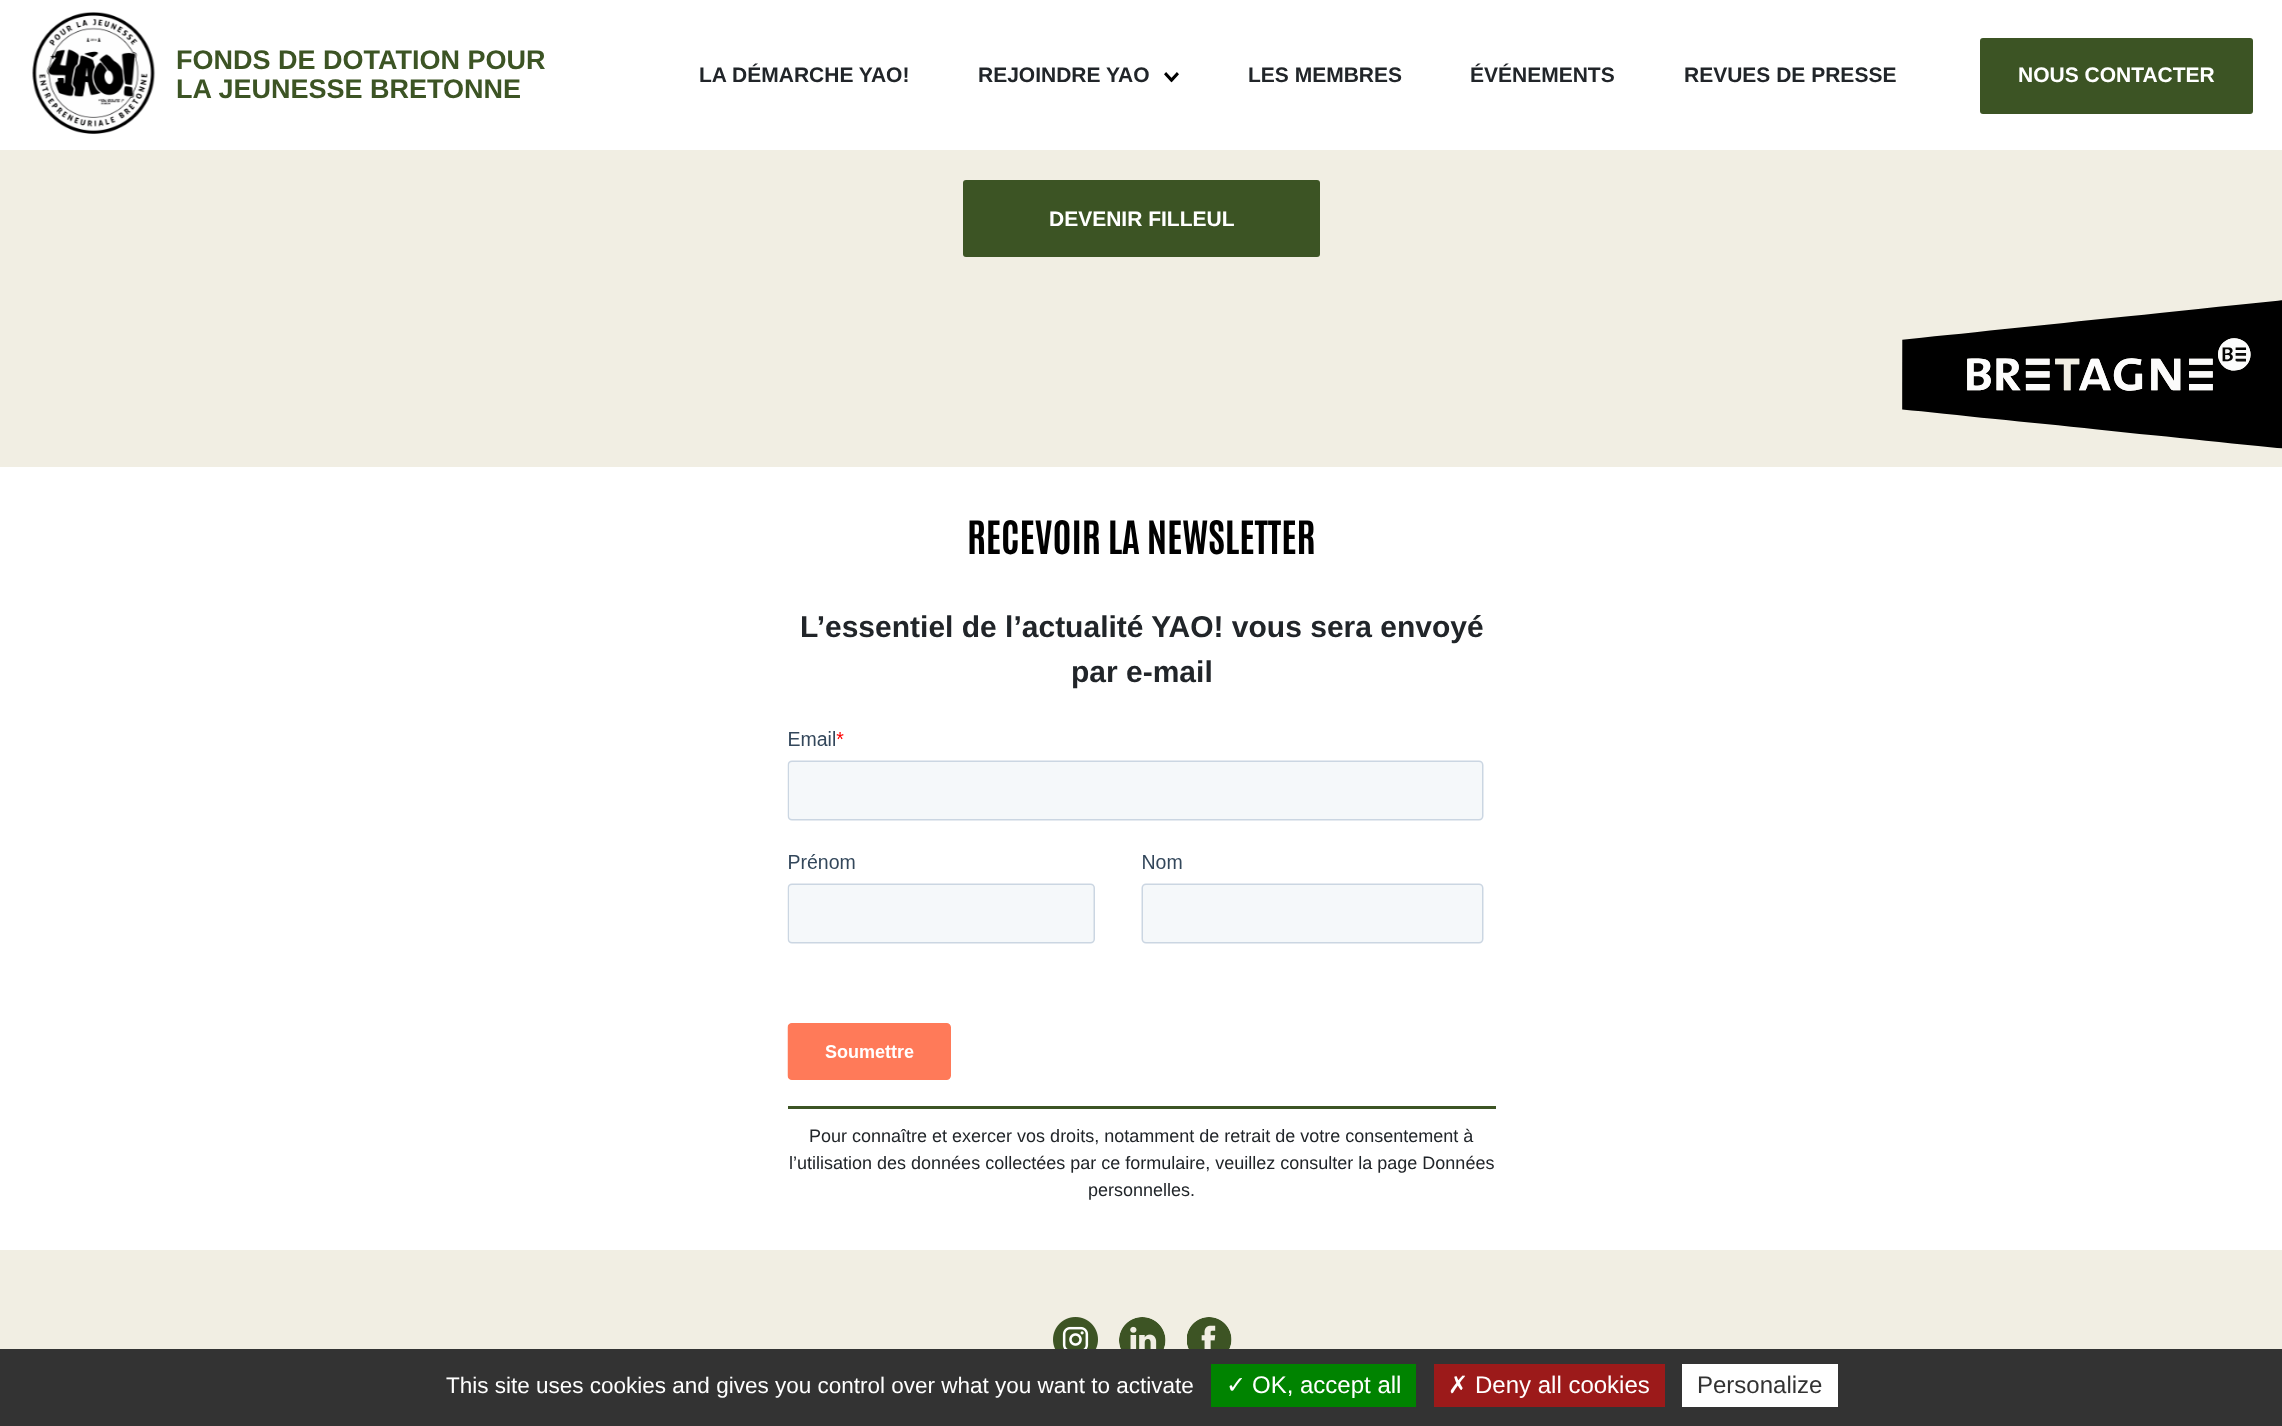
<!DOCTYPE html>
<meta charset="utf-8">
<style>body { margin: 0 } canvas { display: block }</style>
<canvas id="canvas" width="2282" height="1426"></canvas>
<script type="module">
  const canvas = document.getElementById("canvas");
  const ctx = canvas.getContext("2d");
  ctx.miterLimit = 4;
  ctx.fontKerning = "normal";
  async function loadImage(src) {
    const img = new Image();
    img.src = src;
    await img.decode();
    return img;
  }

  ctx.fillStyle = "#ffffff";
  ctx.fillRect(0, 0, 2282, 1426);
  ctx.drawImage(await loadImage("img1.png"), 32, 12, 124, 122);
  ctx.font = "bold 27px Liberation Sans";
  ctx.fillStyle = "#3c5424";
  ctx.fillText("FONDS DE DOTATION POUR", 176, 69);
  ctx.fillText("LA JEUNESSE BRETONNE", 176, 98);
  ctx.font = "bold 21px Liberation Sans";
  ctx.fillStyle = "#212529";
  ctx.fillText("LA DÉMARCHE YAO!", 699, 82);
  ctx.fillText("REJOINDRE YAO", 978, 82);
  ctx.drawImage(await loadImage("img2.png"), 1164, 72, 15, 11);
  ctx.fillText("LES MEMBRES", 1248, 82);
  ctx.fillText("ÉVÉNEMENTS", 1470, 82);
  ctx.fillText("REVUES DE PRESSE", 1684, 82);
  ctx.fillStyle = "#3c5424";
  ctx.beginPath();
  ctx.roundRect(1980, 38, 273, 76, 3);
  ctx.fill();
  ctx.fillStyle = "#ffffff";
  ctx.fillText("NOUS CONTACTER", 2018, 82);
  ctx.fillStyle = "#f1eee3";
  ctx.fillRect(0, 150, 2282, 317);
  ctx.fillStyle = "#3c5424";
  ctx.beginPath();
  ctx.roundRect(963, 180, 357, 77, 3);
  ctx.fill();
  ctx.fillStyle = "#ffffff";
  ctx.fillText("DEVENIR FILLEUL", 1049, 226);
  ctx.font = "bold 39px Antonio";
  ctx.fillStyle = "#000000";
  ctx.fillText("RECEVOIR LA NEWSLETTER", 967, 554);
  ctx.font = "bold 30px Liberation Sans";
  ctx.fillStyle = "#212529";
  ctx.fillText("L’essentiel de l’actualité YAO! vous sera envoyé", 800, 637);
  ctx.fillText("par e-mail", 1071, 682);
  ctx.fillStyle = "#3c5424";
  ctx.fillRect(788, 1106, 708, 3);
  ctx.drawImage(await loadImage("img3.png"), 787, 731, 697, 349);
  ctx.font = "18px Liberation Sans";
  ctx.fillStyle = "#212529";
  ctx.fillText("Pour connaître et exercer vos droits, notamment de retrait de votre consentement à", 809, 1142);
  ctx.fillText("l’utilisation des données collectées par ce formulaire, veuillez consulter la page Données", 789, 1169);
  ctx.fillText("personnelles.", 1088, 1196);
  ctx.drawImage(await loadImage("img4.png"), 1902, 300, 380, 149);
  ctx.fillStyle = "#f1eee3";
  ctx.fillRect(0, 1250, 2282, 99);
  ctx.drawImage(await loadImage("img5.png"), 1053, 1317, 45, 32);
  ctx.drawImage(await loadImage("img6.png"), 1119, 1317, 47, 32);
  ctx.drawImage(await loadImage("img7.png"), 1187, 1317, 45, 32);
  ctx.fillStyle = "#333333";
  ctx.fillRect(0, 1349, 2282, 77);
  ctx.font = "22.5px Liberation Sans";
  ctx.fillStyle = "#ffffff";
  ctx.fillText("This site uses cookies and gives you control over what you want to activate", 446, 1393);
  ctx.fillStyle = "#008300";
  ctx.fillRect(1211, 1364, 205, 43);
  ctx.font = "24px DejaVu Sans";
  ctx.fillStyle = "#ffffff";
  ctx.fillText("✓", 1226, 1393);
  ctx.font = "24px Liberation Sans";
  ctx.fillText("OK, accept all", 1252, 1393);
  ctx.fillStyle = "#9c1a1a";
  ctx.fillRect(1434, 1364, 231, 43);
  ctx.font = "24px DejaVu Sans";
  ctx.fillStyle = "#ffffff";
  ctx.fillText("✗", 1448, 1393);
  ctx.font = "24px Liberation Sans";
  ctx.fillText("Deny all cookies", 1475, 1393);
  ctx.fillRect(1682, 1364, 156, 43);
  ctx.fillStyle = "#333333";
  ctx.fillText("Personalize", 1697, 1393);
</script>
